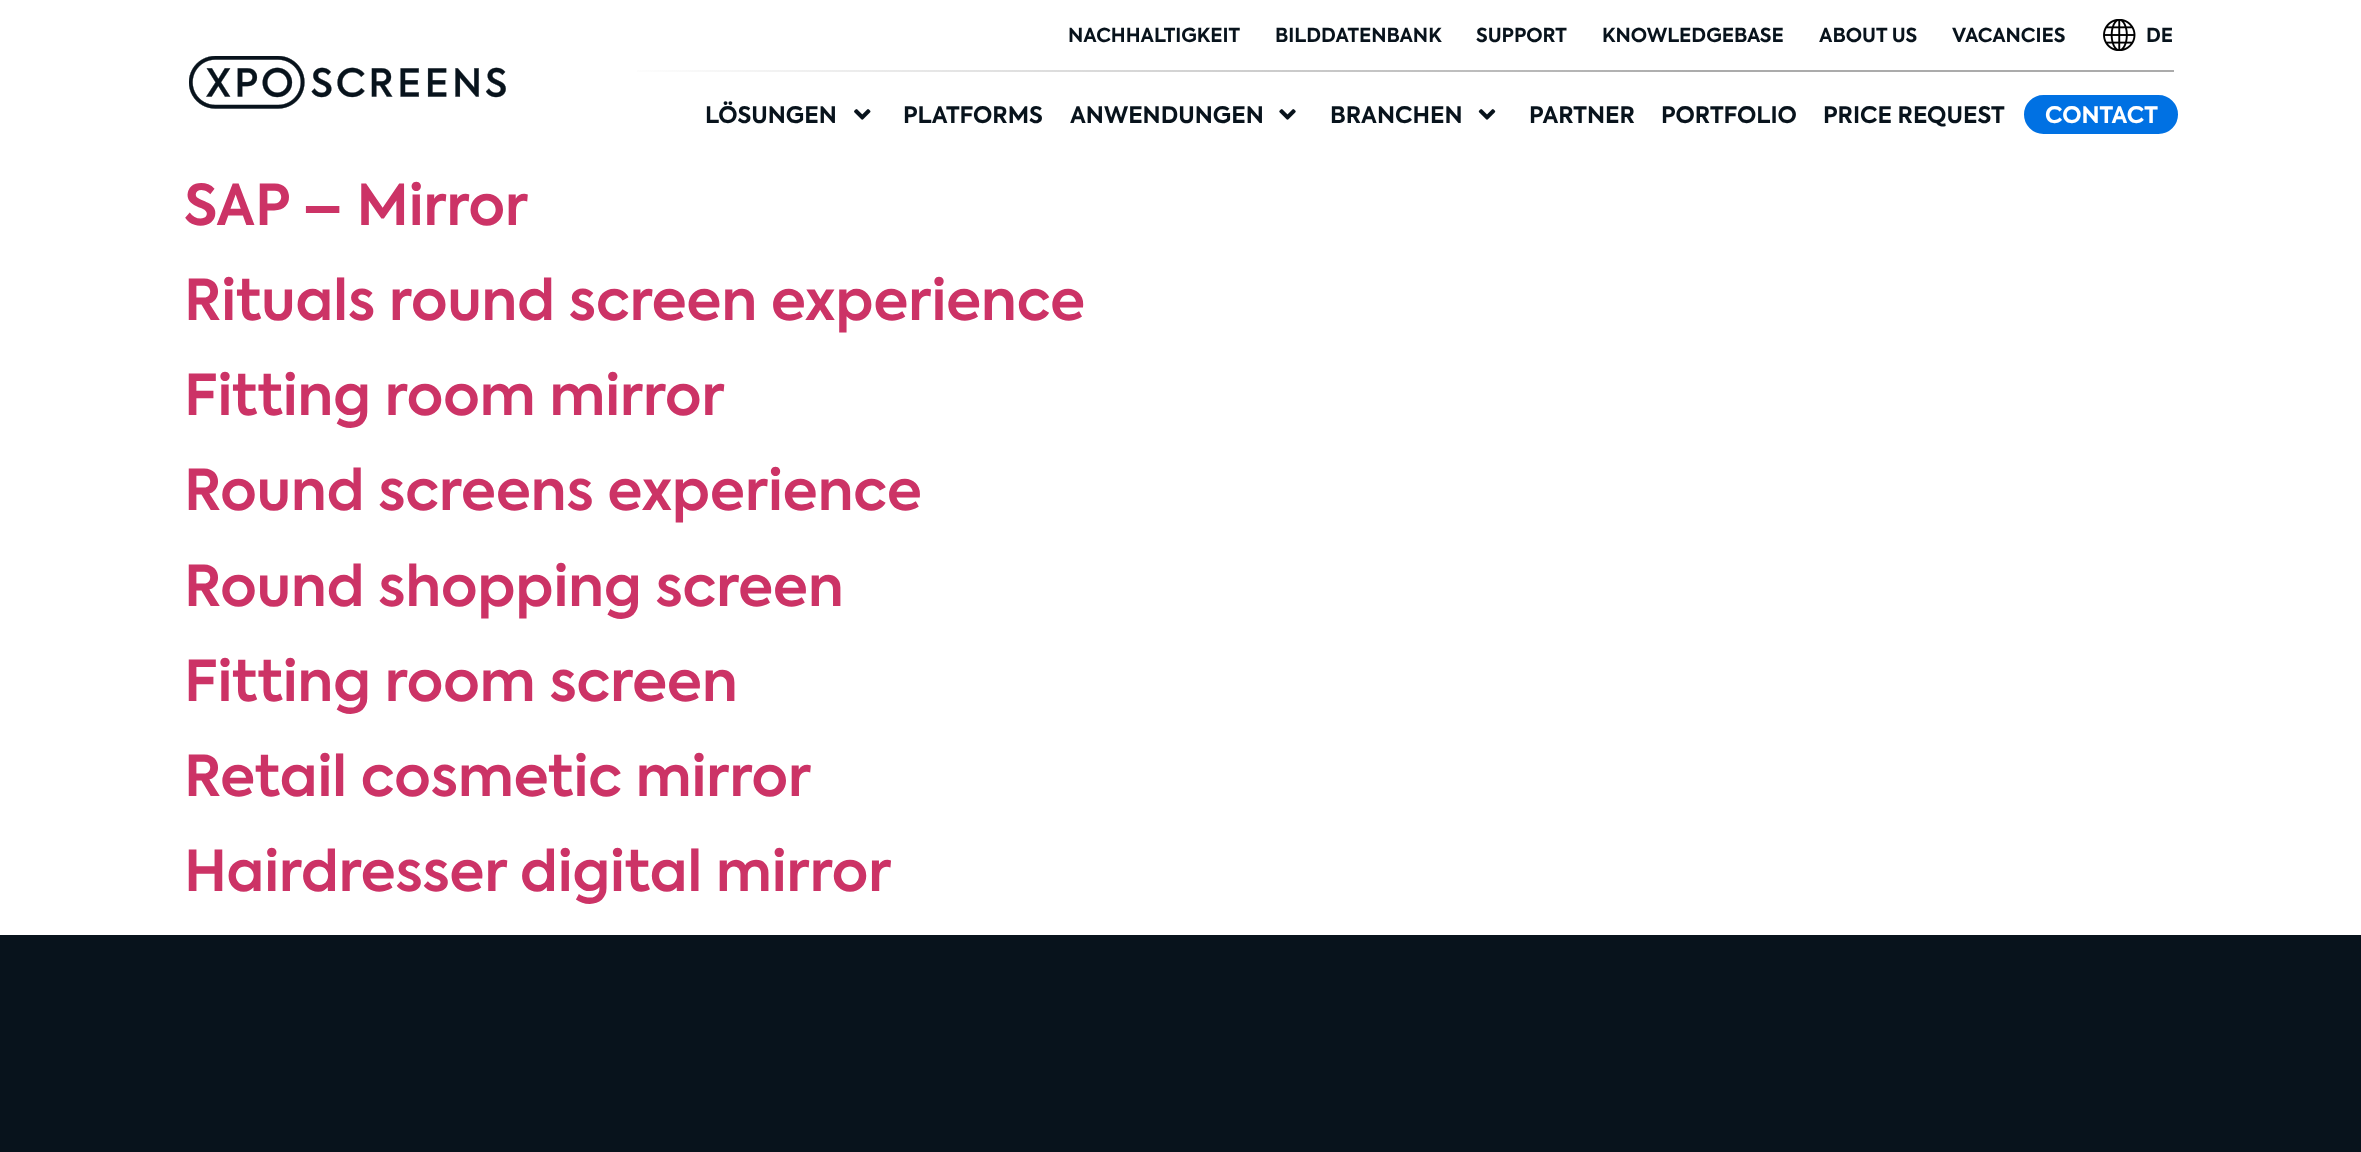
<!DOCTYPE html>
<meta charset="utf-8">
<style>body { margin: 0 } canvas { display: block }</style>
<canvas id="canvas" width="2361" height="1152"></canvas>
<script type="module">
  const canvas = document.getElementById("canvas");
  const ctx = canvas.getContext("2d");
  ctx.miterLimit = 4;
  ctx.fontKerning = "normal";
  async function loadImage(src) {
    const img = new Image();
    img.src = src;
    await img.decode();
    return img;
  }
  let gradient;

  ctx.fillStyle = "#ffffff";
  ctx.fillRect(0, 0, 2361, 1152);
  ctx.drawImage(await loadImage("img1.png"), 189, 56, 317, 53);
  ctx.font = "bold 19.25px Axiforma";
  ctx.fillStyle = "#08131c";
  ctx.fillText("NACHHALTIGKEIT", 1068, 42);
  ctx.fillText("BILDDATENBANK", 1275, 42);
  ctx.fillText("SUPPORT", 1476, 42);
  ctx.fillText("KNOWLEDGEBASE", 1602, 42);
  ctx.fillText("ABOUT US", 1819, 42);
  ctx.fillText("VACANCIES", 1952, 42);
  ctx.drawImage(await loadImage("img2.png"), 2103, 19, 33, 32);
  ctx.fillText("DE", 2146, 42);
  gradient = ctx.createLinearGradient(997, 463, 1782, -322);
  gradient.addColorStop(0, "#ffffff");
  gradient.addColorStop(0.7, "#ababab");
  ctx.fillStyle = gradient;
  ctx.fillRect(637, 70, 1537, 2);
  ctx.font = "bold 22.75px Axiforma";
  ctx.fillStyle = "#08131c";
  ctx.fillText("LÖSUNGEN", 705, 123);
  ctx.drawImage(await loadImage("img3.png"), 854, 109, 17, 11);
  ctx.fillText("PLATFORMS", 903, 123);
  ctx.fillText("ANWENDUNGEN", 1070, 123);
  ctx.drawImage(await loadImage("img4.png"), 1279, 109, 17, 11);
  ctx.fillText("BRANCHEN", 1330, 123);
  ctx.drawImage(await loadImage("img5.png"), 1478, 109, 18, 11);
  ctx.fillText("PARTNER", 1529, 123);
  ctx.fillText("PORTFOLIO", 1661, 123);
  ctx.fillText("PRICE REQUEST", 1823, 123);
  ctx.fillStyle = "#0071e3";
  ctx.beginPath();
  ctx.roundRect(2022, 93, 158, 43, 21.5);
  ctx.fill();
  ctx.strokeStyle = "#ffffff";
  ctx.lineWidth = 4;
  ctx.stroke();
  ctx.fillStyle = "#ffffff";
  ctx.fillText("CONTACT", 2045, 123);
  ctx.font = "600 56px Axiforma";
  ctx.fillStyle = "#cc3366";
  ctx.fillText("SAP – Mirror", 184, 225);
  ctx.fillText("Rituals round screen experience", 184, 320);
  ctx.fillText("Fitting room mirror", 184, 415);
  ctx.fillText("Round screens experience", 184, 510);
  ctx.fillText("Round shopping screen", 184, 606);
  ctx.fillText("Fitting room screen", 184, 701);
  ctx.fillText("Retail cosmetic mirror", 184, 796);
  ctx.fillText("Hairdresser digital mirror", 184, 891);
  ctx.fillStyle = "#08131c";
  ctx.fillRect(0, 935, 2361, 217);
</script>
